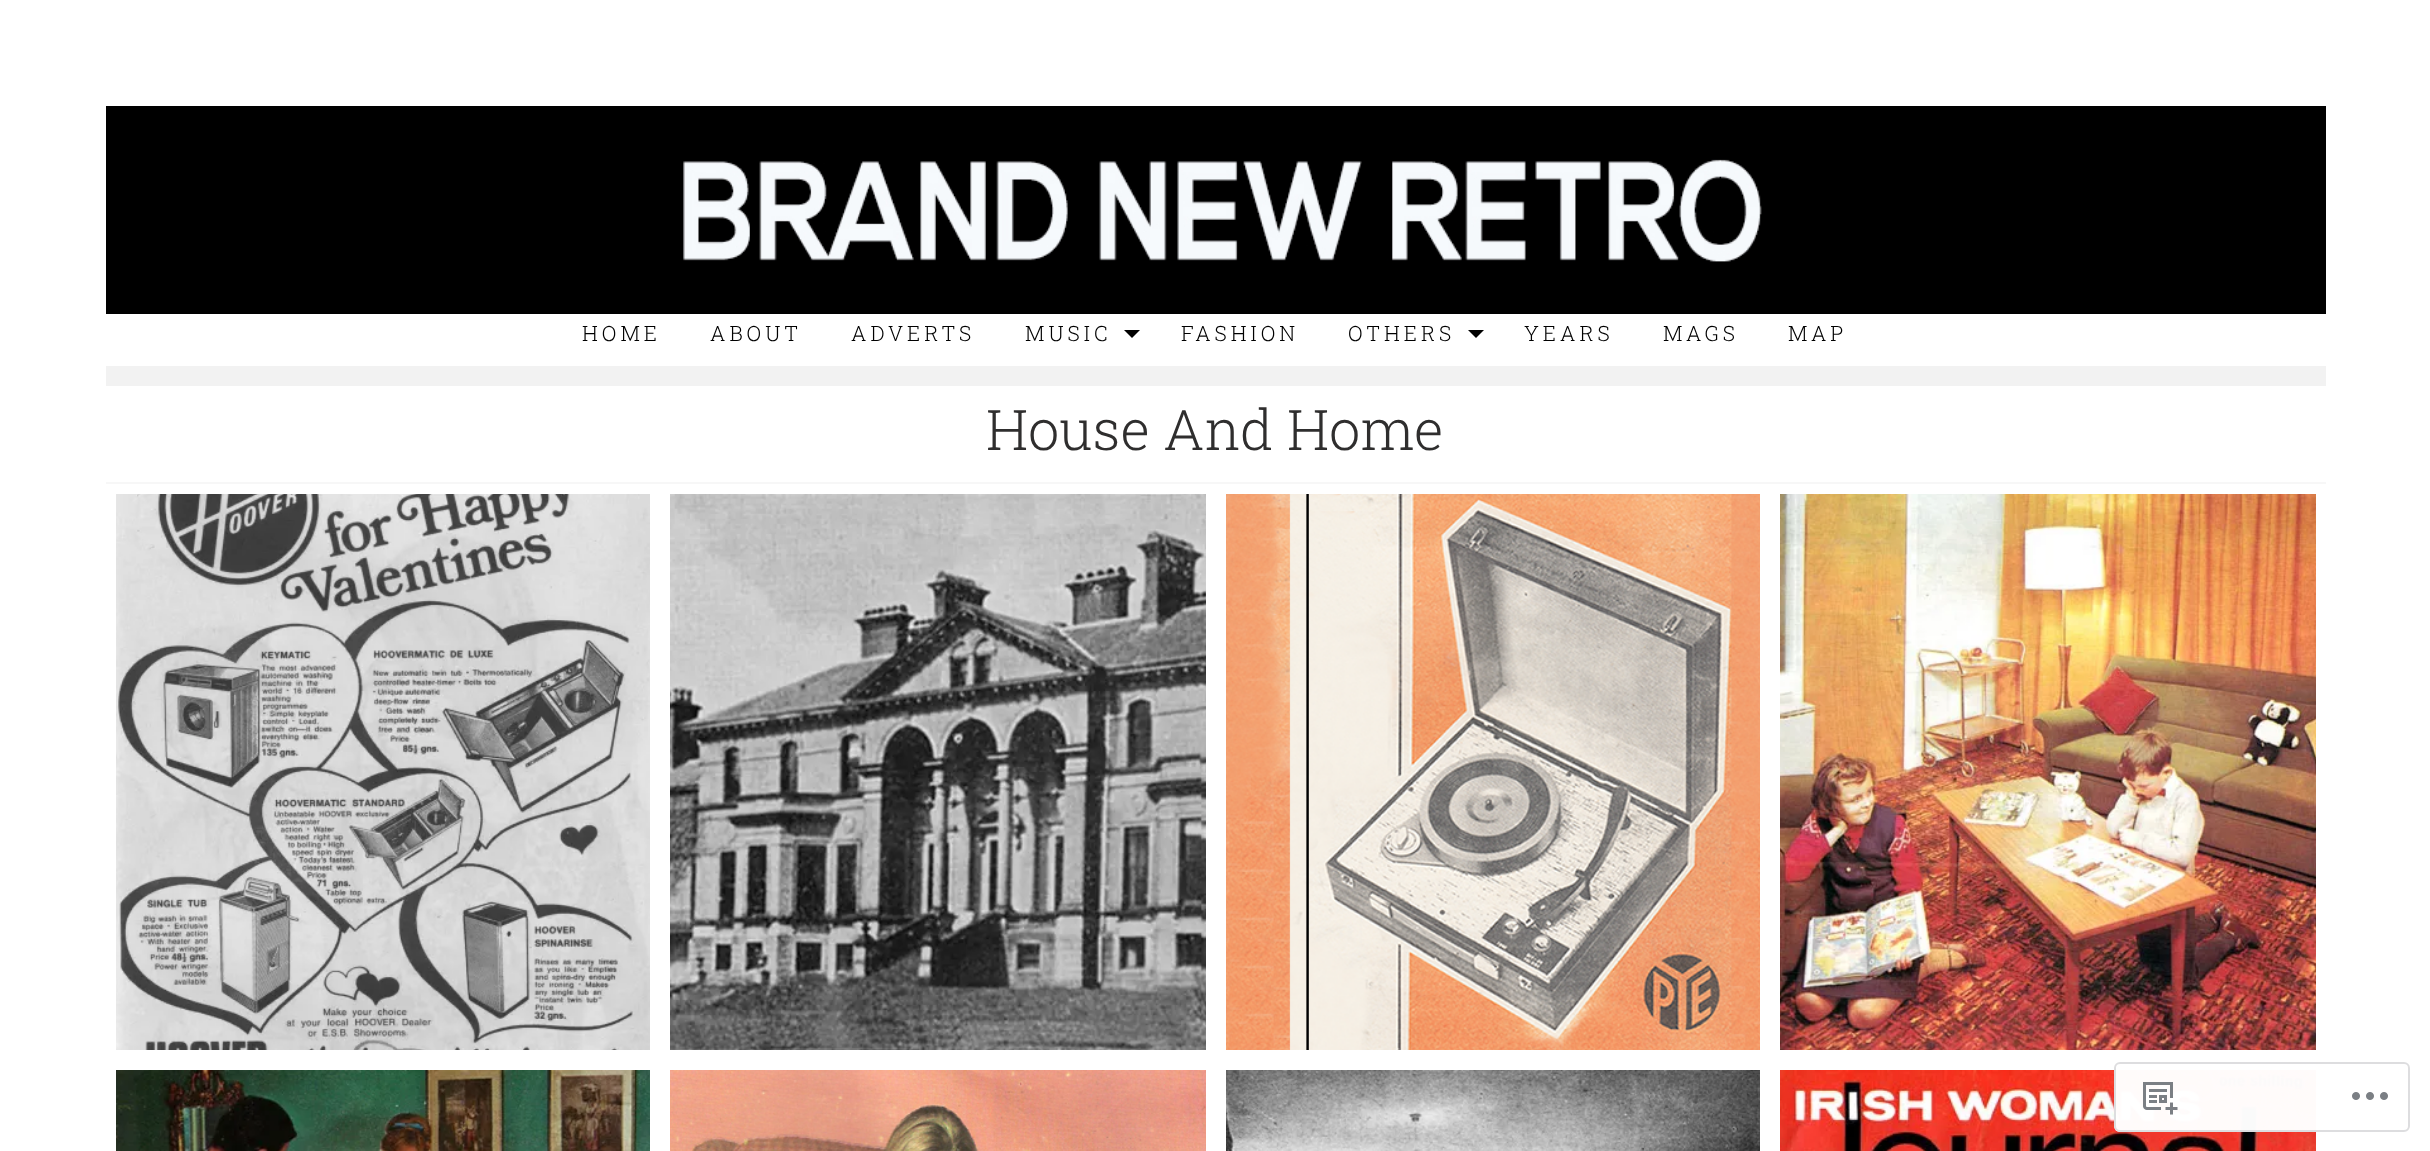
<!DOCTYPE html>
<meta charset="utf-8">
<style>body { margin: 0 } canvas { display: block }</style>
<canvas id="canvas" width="2430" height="1151"></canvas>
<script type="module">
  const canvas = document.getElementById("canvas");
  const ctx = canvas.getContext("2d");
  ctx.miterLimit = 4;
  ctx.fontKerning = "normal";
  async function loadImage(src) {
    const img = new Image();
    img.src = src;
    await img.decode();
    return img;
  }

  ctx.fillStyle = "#ffffff";
  ctx.fillRect(0, 0, 2430, 1151);
  ctx.fillStyle = "#f2f2f2";
  ctx.fillRect(106, 366, 2220, 20);
  ctx.drawImage(await loadImage("img1.png"), 106, 106, 2220, 208);
  ctx.letterSpacing = "4px";
  ctx.font = "300 21px Roboto Slab";
  ctx.fillStyle = "#000000";
  ctx.fillText("HOME", 582, 341);
  ctx.fillText("ABOUT", 710, 341);
  ctx.fillText("ADVERTS", 851, 341);
  ctx.fillText("MUSIC", 1025, 341);
  ctx.beginPath();
  ctx.moveTo(1124, 330);
  ctx.lineTo(1140, 330);
  ctx.lineTo(1132, 338);
  ctx.closePath();
  ctx.fill();
  ctx.fillText("FASHION", 1181, 341);
  ctx.fillText("OTHERS", 1348, 341);
  ctx.beginPath();
  ctx.moveTo(1468, 330);
  ctx.lineTo(1484, 330);
  ctx.lineTo(1476, 338);
  ctx.closePath();
  ctx.fill();
  ctx.fillText("YEARS", 1524, 341);
  ctx.fillText("MAGS", 1663, 341);
  ctx.fillText("MAP", 1788, 341);
  ctx.letterSpacing = "0px";
  ctx.font = "300 56px Roboto Slab";
  ctx.fillStyle = "#2f2e2e";
  ctx.fillText("House And Home", 986, 450);
  ctx.fillStyle = "#f7f7f7";
  ctx.fillRect(106, 482, 2220, 2);
  ctx.drawImage(await loadImage("img2.png"), 116, 494, 534, 556);
  ctx.drawImage(await loadImage("img3.png"), 670, 494, 536, 556);
  ctx.drawImage(await loadImage("img4.png"), 1226, 494, 534, 556);
  ctx.drawImage(await loadImage("img5.png"), 1780, 494, 536, 556);
  ctx.drawImage(await loadImage("img6.png"), 116, 1070, 534, 81);
  ctx.drawImage(await loadImage("img7.png"), 670, 1070, 536, 81);
  ctx.drawImage(await loadImage("img8.png"), 1226, 1070, 534, 81);
  ctx.drawImage(await loadImage("img9.png"), 1780, 1070, 536, 81);
  ctx.fillStyle = "rgba(255, 255, 255, 0.98)";
  ctx.beginPath();
  ctx.roundRect(2114, 1062, 296, 70, 6);
  ctx.fill();
  ctx.beginPath();
  ctx.roundRect(2115, 1063, 294, 68, 5);
  ctx.strokeStyle = "rgba(220, 220, 222, 0.98)";
  ctx.lineWidth = 2;
  ctx.stroke();
  ctx.drawImage(await loadImage("img10.png"), 2143, 1082, 35, 33);
  ctx.drawImage(await loadImage("img11.png"), 2352, 1092, 36, 8);
</script>
